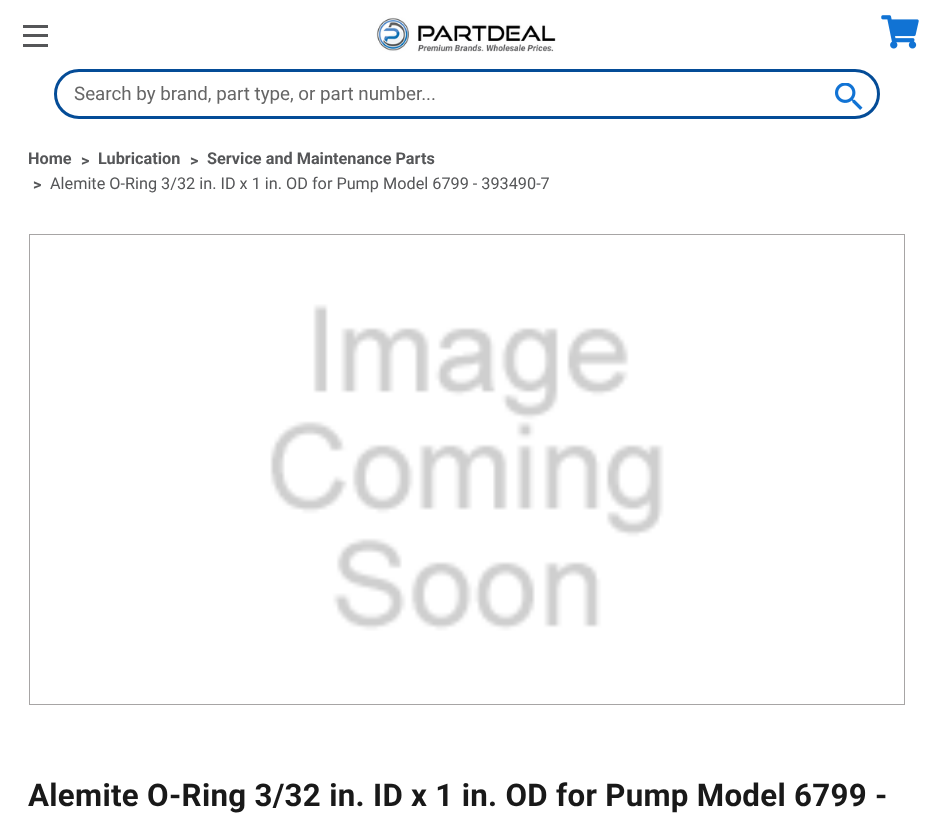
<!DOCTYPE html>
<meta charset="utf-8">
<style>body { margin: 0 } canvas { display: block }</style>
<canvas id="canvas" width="932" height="829"></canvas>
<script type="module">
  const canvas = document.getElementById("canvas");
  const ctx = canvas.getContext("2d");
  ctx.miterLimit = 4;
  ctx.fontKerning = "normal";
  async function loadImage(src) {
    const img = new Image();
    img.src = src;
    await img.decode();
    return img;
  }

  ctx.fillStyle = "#ffffff";
  ctx.fillRect(0, 0, 932, 829);
  ctx.fillStyle = "#555658";
  ctx.fillRect(23, 34, 25, 3);
  ctx.fillRect(23, 25, 25, 3);
  ctx.fillRect(23, 44, 25, 3);
  ctx.drawImage(await loadImage("img1.png"), 376, 17, 180, 35);
  ctx.drawImage(await loadImage("img2.png"), 881, 15, 38, 34);
  ctx.beginPath();
  ctx.roundRect(55.5, 70.5, 823, 47, 23.5);
  ctx.strokeStyle = "#044c97";
  ctx.lineWidth = 3;
  ctx.stroke();
  ctx.font = "18.75px Roboto";
  ctx.fillStyle = "#666666";
  ctx.fillText("Search by brand, part type, or part number...", 74, 100);
  ctx.drawImage(await loadImage("img3.png"), 835, 83, 28, 27);
  ctx.font = "bold 16.25px Roboto";
  ctx.fillStyle = "#555658";
  ctx.fillText("Home", 28, 164);
  ctx.fillText(">", 81, 166);
  ctx.fillText("Lubrication", 98, 164);
  ctx.fillText(">", 190, 166);
  ctx.fillText("Service and Maintenance Parts", 207, 164);
  ctx.fillText(">", 33, 190);
  ctx.font = "16.25px Roboto";
  ctx.fillText("Alemite O-Ring 3/32 in. ID x 1 in. OD for Pump Model 6799 - 393490-7", 50, 189);
  ctx.strokeStyle = "#a7a5a5";
  ctx.lineWidth = 1;
  ctx.strokeRect(29.5, 234.5, 875, 470);
  ctx.drawImage(await loadImage("img4.png"), 270, 304, 394, 327);
  ctx.letterSpacing = "0.3px";
  ctx.font = "bold 31.25px Roboto";
  ctx.fillStyle = "#191919";
  ctx.fillText("Alemite O-Ring 3/32 in. ID x 1 in. OD for Pump Model 6799 -", 28, 806);
</script>
